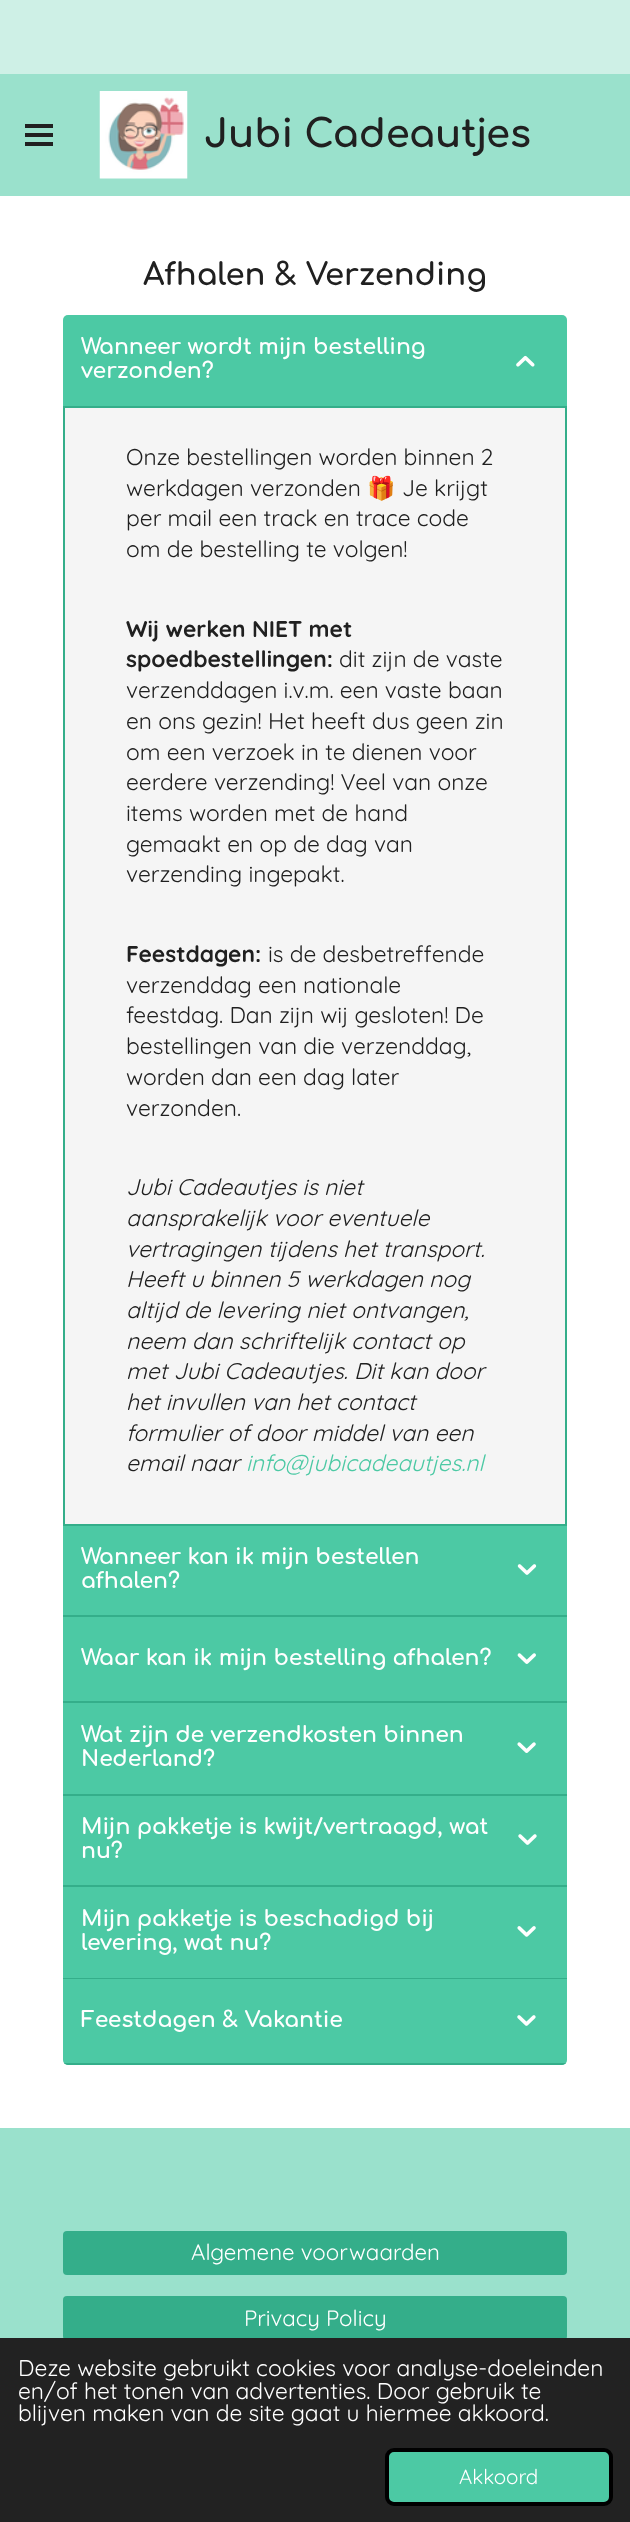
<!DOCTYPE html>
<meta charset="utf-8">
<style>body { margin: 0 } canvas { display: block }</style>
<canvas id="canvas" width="630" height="2522"></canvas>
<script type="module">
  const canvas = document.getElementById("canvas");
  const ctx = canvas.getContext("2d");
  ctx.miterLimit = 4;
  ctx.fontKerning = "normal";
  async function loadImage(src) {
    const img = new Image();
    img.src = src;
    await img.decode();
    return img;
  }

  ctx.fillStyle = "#ffffff";
  ctx.fillRect(0, 0, 630, 2522);
  ctx.fillStyle = "#cef0e6";
  ctx.fillRect(0, 0, 630, 74);
  ctx.fillStyle = "#9ae1cc";
  ctx.fillRect(0, 74, 77, 122);
  ctx.fillStyle = "#202020";
  ctx.fillRect(25, 133, 28, 4);
  ctx.fillRect(25, 124, 28, 4);
  ctx.fillRect(25, 142, 28, 4);
  ctx.fillStyle = "#9ae1cc";
  ctx.fillRect(77, 74, 553, 122);
  ctx.drawImage(await loadImage("img1.png"), 99, 91, 89, 88);
  ctx.font = "bold 38.5px Comfortaa";
  ctx.fillStyle = "#202020";
  ctx.fillText("Jubi Cadeautjes", 204, 147);
  ctx.font = "bold 30.6px Comfortaa";
  ctx.fillText("Afhalen & Verzending", 143, 285);
  ctx.fillStyle = "#f5f5f5";
  ctx.beginPath();
  ctx.roundRect(63, 315, 504, 1211, [5, 5, 0, 0]);
  ctx.fill();
  ctx.fillStyle = "#4cc9a4";
  ctx.beginPath();
  ctx.roundRect(63, 315, 504, 93, [5, 5, 0, 0]);
  ctx.fill();
  ctx.fillStyle = "#34ae8a";
  ctx.fillRect(63, 406, 504, 2);
  ctx.font = "bold 21.9px Comfortaa";
  ctx.fillStyle = "#ffffff";
  ctx.fillText("Wanneer wordt mijn bestelling", 81, 354);
  ctx.fillText("verzonden?", 81, 378);
  ctx.drawImage(await loadImage("img2.png"), 516, 355, 19, 12);
  ctx.fillStyle = "#34ae8a";
  ctx.fillRect(565, 408, 2, 1118);
  ctx.fillRect(63, 1524, 504, 2);
  ctx.fillRect(63, 408, 2, 1118);
  ctx.font = "22.75px Quicksand";
  ctx.fillStyle = "#202020";
  ctx.fillText("Onze bestellingen worden binnen 2", 126, 465);
  ctx.fillText("werkdagen verzonden", 126, 496);
  ctx.font = "22.75px Noto Color Emoji";
  ctx.fillText("🎁", 367, 496);
  ctx.font = "22.75px Quicksand";
  ctx.fillText("Je krijgt", 402, 496);
  ctx.fillText("per mail een track en trace code", 126, 526);
  ctx.fillText("om de bestelling te volgen!", 126, 557);
  ctx.font = "bold 22.75px Quicksand";
  ctx.fillText("Wij werken NIET met", 126, 637);
  ctx.fillText("spoedbestellingen:", 126, 667);
  ctx.font = "22.75px Quicksand";
  ctx.fillText("dit zijn de vaste", 339, 667);
  ctx.fillText("verzenddagen i.v.m. een vaste baan", 126, 698);
  ctx.fillText("en ons gezin! Het heeft dus geen zin", 126, 729);
  ctx.fillText("om een verzoek in te dienen voor", 126, 760);
  ctx.fillText("eerdere verzending! Veel van onze", 126, 790);
  ctx.fillText("items worden met de hand", 126, 821);
  ctx.fillText("gemaakt en op de dag van", 126, 852);
  ctx.fillText("verzending ingepakt.", 126, 882);
  ctx.font = "bold 22.75px Quicksand";
  ctx.fillText("Feestdagen:", 126, 962);
  ctx.font = "22.75px Quicksand";
  ctx.fillText("is de desbetreffende", 268, 962);
  ctx.fillText("verzenddag een nationale", 126, 993);
  ctx.fillText("feestdag. Dan zijn wij gesloten! De", 126, 1023);
  ctx.fillText("bestellingen van die verzenddag,", 126, 1054);
  ctx.fillText("worden dan een dag later", 126, 1085);
  ctx.fillText("verzonden.", 126, 1116);
  ctx.font = "italic 22.75px Quicksand";
  ctx.fillText("Jubi Cadeautjes is niet", 126, 1195);
  ctx.fillText("aansprakelijk voor eventuele", 126, 1226);
  ctx.fillText("vertragingen tijdens het transport.", 126, 1257);
  ctx.fillText("Heeft u binnen 5 werkdagen nog", 126, 1287);
  ctx.fillText("altijd de levering niet ontvangen,", 126, 1318);
  ctx.fillText("neem dan schriftelijk contact op", 126, 1349);
  ctx.fillText("met Jubi Cadeautjes. Dit kan door", 126, 1379);
  ctx.fillText("het invullen van het contact", 126, 1410);
  ctx.fillText("formulier of door middel van een", 126, 1441);
  ctx.fillText("email naar", 126, 1471);
  ctx.fillStyle = "#4cc9a4";
  ctx.fillText("info@jubicadeautjes.nl", 246, 1471);
  ctx.fillRect(63, 1526, 504, 89);
  ctx.fillStyle = "#34ae8a";
  ctx.fillRect(63, 1615, 504, 2);
  ctx.font = "bold 21.9px Comfortaa";
  ctx.fillStyle = "#ffffff";
  ctx.fillText("Wanneer kan ik mijn bestellen", 81, 1564);
  ctx.fillText("afhalen?", 81, 1588);
  ctx.drawImage(await loadImage("img3.png"), 517, 1564, 20, 11);
  ctx.fillStyle = "#4cc9a4";
  ctx.fillRect(63, 1617, 504, 84);
  ctx.fillStyle = "#34ae8a";
  ctx.fillRect(63, 1701, 504, 2);
  ctx.fillStyle = "#ffffff";
  ctx.fillText("Waar kan ik mijn bestelling afhalen?", 81, 1665);
  ctx.drawImage(await loadImage("img4.png"), 517, 1653, 19, 11);
  ctx.fillStyle = "#4cc9a4";
  ctx.fillRect(63, 1703, 504, 91);
  ctx.fillStyle = "#34ae8a";
  ctx.fillRect(63, 1794, 504, 2);
  ctx.fillStyle = "#ffffff";
  ctx.fillText("Wat zijn de verzendkosten binnen", 81, 1742);
  ctx.fillText("Nederland?", 81, 1766);
  ctx.drawImage(await loadImage("img5.png"), 517, 1742, 19, 11);
  ctx.fillStyle = "#4cc9a4";
  ctx.fillRect(63, 1796, 504, 89);
  ctx.fillStyle = "#34ae8a";
  ctx.fillRect(63, 1885, 504, 2);
  ctx.fillStyle = "#ffffff";
  ctx.fillText("Mijn pakketje is kwijt/vertraagd, wat", 81, 1834);
  ctx.fillText("nu?", 81, 1858);
  ctx.drawImage(await loadImage("img6.png"), 518, 1834, 19, 11);
  ctx.fillStyle = "#4cc9a4";
  ctx.fillRect(63, 1887, 504, 91);
  ctx.fillStyle = "#34ae8a";
  ctx.fillRect(63, 1978, 504, 1);
  ctx.fillStyle = "#ffffff";
  ctx.fillText("Mijn pakketje is beschadigd bij", 81, 1926);
  ctx.fillText("levering, wat nu?", 81, 1950);
  ctx.drawImage(await loadImage("img7.png"), 517, 1926, 19, 11);
  ctx.fillStyle = "#4cc9a4";
  ctx.beginPath();
  ctx.roundRect(63, 1979, 504, 86, [0, 0, 5, 5]);
  ctx.fill();
  ctx.save();
  ctx.beginPath();
  ctx.roundRect(63, 315, 504, 1750, 5);
  ctx.clip();
  ctx.fillStyle = "#34ae8a";
  ctx.fillRect(63, 2063, 504, 2);
  ctx.restore();
  ctx.fillStyle = "#ffffff";
  ctx.fillText("Feestdagen & Vakantie", 81, 2027);
  ctx.drawImage(await loadImage("img8.png"), 517, 2015, 19, 11);
  ctx.fillStyle = "#9ae1cc";
  ctx.fillRect(0, 2128, 630, 210);
  ctx.fillStyle = "#34ae8a";
  ctx.beginPath();
  ctx.roundRect(63, 2231, 504, 44, 4);
  ctx.fill();
  ctx.font = "22.25px Quicksand";
  ctx.fillStyle = "#ffffff";
  ctx.fillText("Algemene voorwaarden", 191, 2260);
  ctx.fillStyle = "#34ae8a";
  ctx.beginPath();
  ctx.roundRect(63, 2296, 504, 44, 4);
  ctx.fill();
  ctx.fillStyle = "#ffffff";
  ctx.fillText("Privacy Policy", 244, 2326);
  ctx.fillStyle = "#222222";
  ctx.fillRect(0, 2338, 630, 184);
  ctx.font = "22.75px Quicksand";
  ctx.fillStyle = "#ffffff";
  ctx.fillText("Deze website gebruikt cookies voor analyse-doeleinden", 18, 2376);
  ctx.fillText("en/of het tonen van advertenties. Door gebruik te", 18, 2399);
  ctx.fillText("blijven maken van de site gaat u hiermee akkoord.", 18, 2421);
  ctx.fillStyle = "#4cc9a4";
  ctx.beginPath();
  ctx.roundRect(387, 2450, 224, 54, 7);
  ctx.fill();
  ctx.strokeStyle = "#000000";
  ctx.lineWidth = 4;
  ctx.stroke();
  ctx.font = "20.5px Quicksand";
  ctx.fillStyle = "#ffffff";
  ctx.fillText("Akkoord", 459, 2484);
</script>
